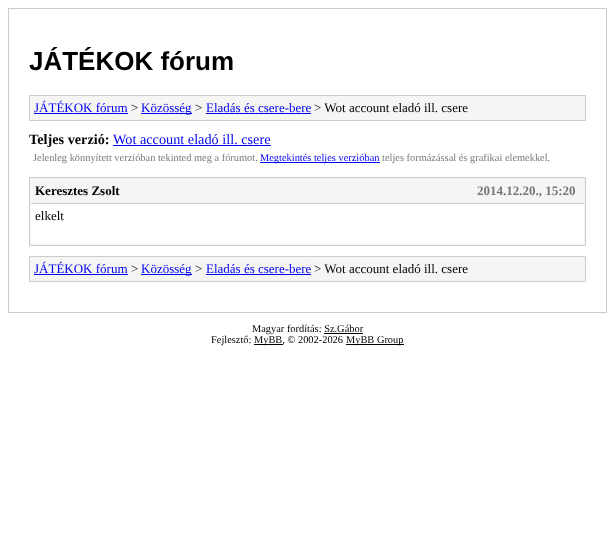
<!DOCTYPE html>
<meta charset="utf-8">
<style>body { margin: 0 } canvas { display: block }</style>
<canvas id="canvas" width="615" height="554"></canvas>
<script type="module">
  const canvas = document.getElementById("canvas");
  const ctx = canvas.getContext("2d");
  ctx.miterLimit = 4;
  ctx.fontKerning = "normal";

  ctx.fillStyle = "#ffffff";
  ctx.fillRect(0, 0, 615, 554);
  ctx.strokeStyle = "#cccccc";
  ctx.strokeRect(8.5, 8.5, 598, 304);
  ctx.font = "bold 26px Liberation Sans";
  ctx.fillStyle = "#000000";
  ctx.fillText("JÁTÉKOK fórum", 29, 70);
  ctx.fillStyle = "#f5f5f4";
  ctx.beginPath();
  ctx.rect(29.5, 95.5, 556, 25);
  ctx.fill();
  ctx.stroke();
  ctx.font = "13px Liberation Serif";
  ctx.fillStyle = "#0000ee";
  ctx.fillText("JÁTÉKOK fórum", 34, 112);
  ctx.fillRect(34, 113, 94, 1);
  ctx.fillStyle = "#000000";
  ctx.fillText(">", 131, 112);
  ctx.fillStyle = "#0000ee";
  ctx.fillRect(141, 113, 51, 1);
  ctx.fillText("Közösség", 141, 112);
  ctx.fillStyle = "#000000";
  ctx.fillText(">", 195, 112);
  ctx.fillStyle = "#0000ee";
  ctx.fillText("Eladás és csere-bere", 206, 112);
  ctx.fillRect(206, 113, 105, 1);
  ctx.fillStyle = "#000000";
  ctx.fillText("> Wot account eladó ill. csere", 314, 112);
  ctx.font = "bold 14.25px Liberation Serif";
  ctx.fillText("Teljes verzió:", 29, 144);
  ctx.font = "14.25px Liberation Serif";
  ctx.fillStyle = "#0000ee";
  ctx.fillText("Wot account eladó ill. csere", 113, 144);
  ctx.fillRect(113, 145, 158, 1);
  ctx.font = "10.4px Liberation Serif";
  ctx.fillStyle = "#777777";
  ctx.fillText("Jelenleg könnyített verzióban tekinted meg a fórumot.", 33, 161);
  ctx.fillStyle = "#0000ee";
  ctx.fillRect(260, 162, 120, 1);
  ctx.fillText("Megtekintés teljes verzióban", 260, 161);
  ctx.fillStyle = "#777777";
  ctx.fillText("teljes formázással és grafikai elemekkel.", 382, 161);
  ctx.fillStyle = "#f5f5f4";
  ctx.beginPath();
  ctx.rect(29.5, 177.5, 556, 68);
  ctx.fill();
  ctx.stroke();
  ctx.fillStyle = "#cccccc";
  ctx.fillRect(31, 203, 553, 1);
  ctx.font = "bold 13px Liberation Serif";
  ctx.fillStyle = "#000000";
  ctx.fillText("Keresztes Zsolt", 35, 195);
  ctx.fillStyle = "#777777";
  ctx.fillText("2014.12.20., 15:20", 477, 195);
  ctx.fillStyle = "#ffffff";
  ctx.fillRect(31, 204, 553, 40);
  ctx.font = "13px Liberation Serif";
  ctx.fillStyle = "#000000";
  ctx.fillText("elkelt", 35, 220);
  ctx.fillStyle = "#f5f5f4";
  ctx.beginPath();
  ctx.rect(29.5, 256.5, 556, 25);
  ctx.fill();
  ctx.stroke();
  ctx.fillStyle = "#0000ee";
  ctx.fillText("JÁTÉKOK fórum", 34, 273);
  ctx.fillRect(34, 274, 94, 1);
  ctx.fillStyle = "#000000";
  ctx.fillText(">", 131, 273);
  ctx.fillStyle = "#0000ee";
  ctx.fillRect(141, 274, 51, 1);
  ctx.fillText("Közösség", 141, 273);
  ctx.fillStyle = "#000000";
  ctx.fillText(">", 195, 273);
  ctx.fillStyle = "#0000ee";
  ctx.fillText("Eladás és csere-bere", 206, 273);
  ctx.fillRect(206, 274, 105, 1);
  ctx.fillStyle = "#000000";
  ctx.fillText("> Wot account eladó ill. csere", 314, 273);
  ctx.font = "10.4px Liberation Serif";
  ctx.fillText("Magyar fordítás: Sz.Gábor", 252, 332);
  ctx.fillRect(324, 333, 39, 1);
  ctx.fillText("Fejlesztő:", 211, 343);
  ctx.fillRect(254, 344, 29, 1);
  ctx.fillText("MyBB, © 2002-2026", 254, 343);
  ctx.fillRect(346, 344, 58, 1);
  ctx.fillText("MyBB Group", 346, 343);
</script>
